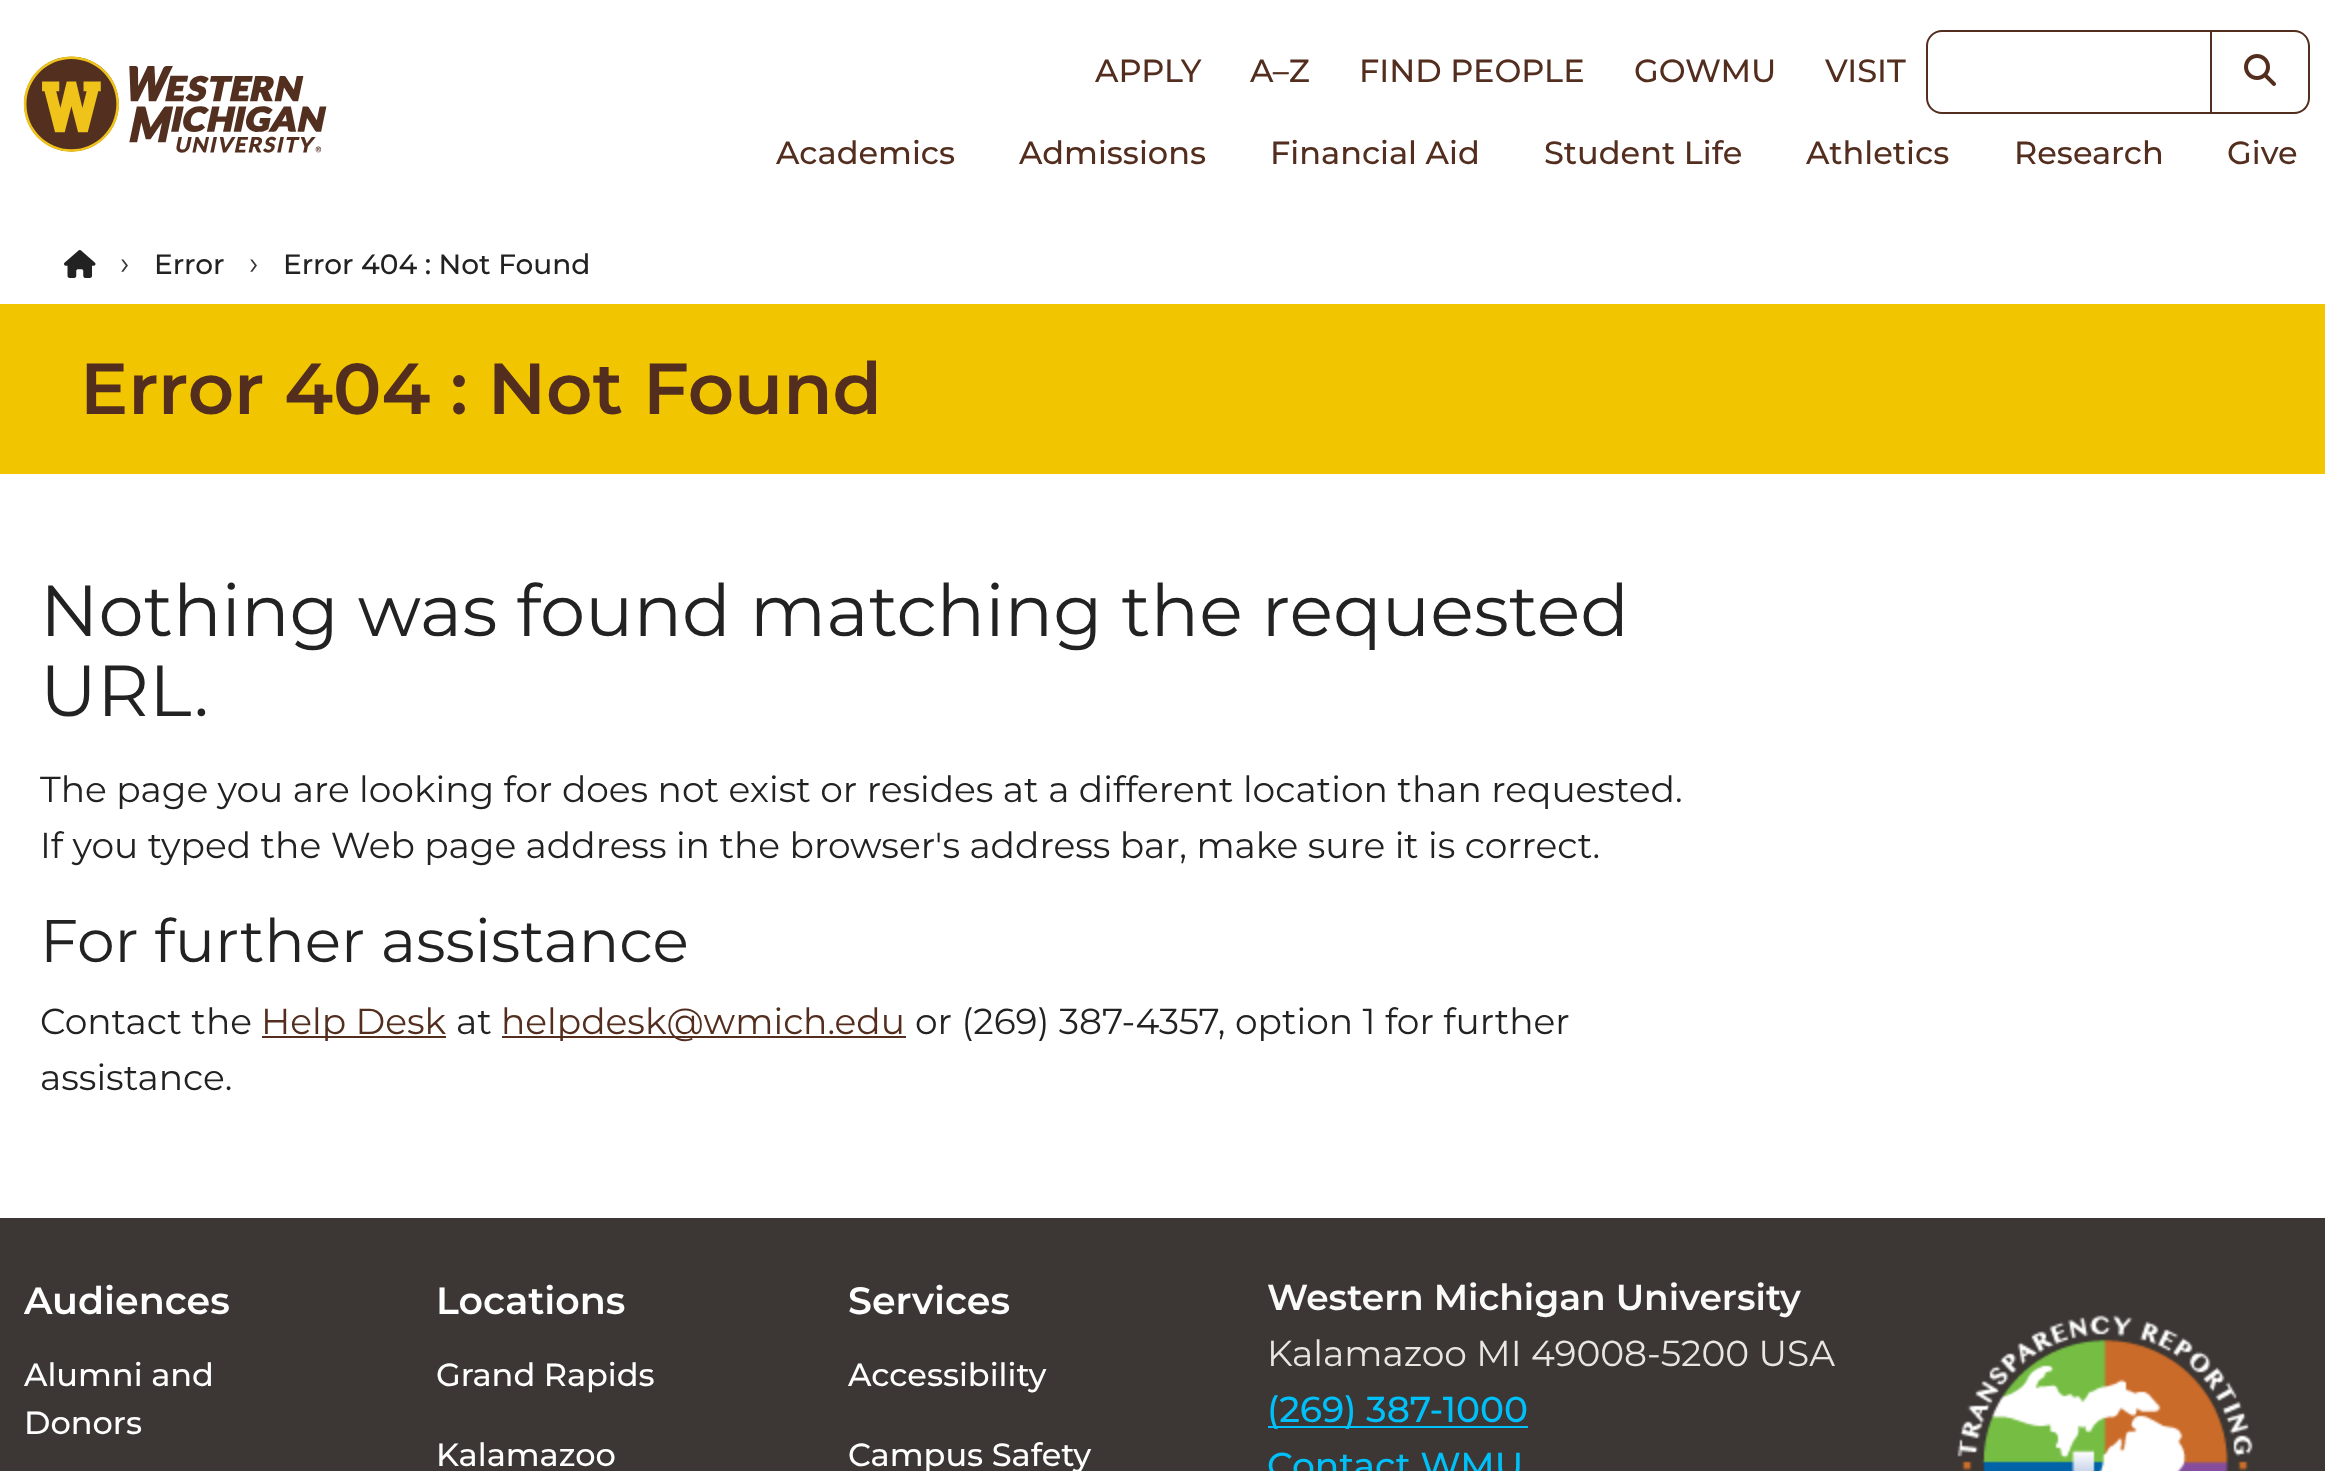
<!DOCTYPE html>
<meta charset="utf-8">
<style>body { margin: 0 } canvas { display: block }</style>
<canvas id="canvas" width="2325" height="1471"></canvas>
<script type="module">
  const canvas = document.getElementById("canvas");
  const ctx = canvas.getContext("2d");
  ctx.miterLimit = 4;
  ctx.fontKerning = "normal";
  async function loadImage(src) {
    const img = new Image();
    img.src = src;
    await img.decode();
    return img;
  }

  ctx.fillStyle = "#ffffff";
  ctx.fillRect(0, 0, 2325, 1471);
  ctx.drawImage(await loadImage("img1.png"), 23, 56, 304, 97);
  ctx.font = "500 32px Montserrat";
  ctx.fillStyle = "#532e1f";
  ctx.fillText("APPLY", 1095, 82);
  ctx.fillText("A–Z", 1250, 82);
  ctx.fillText("FIND PEOPLE", 1359, 82);
  ctx.fillText("GOWMU", 1634, 82);
  ctx.fillText("VISIT", 1825, 82);
  ctx.beginPath();
  ctx.roundRect(1927, 31, 284, 82, [15, 0, 0, 15]);
  ctx.strokeStyle = "#532e1f";
  ctx.lineWidth = 2;
  ctx.stroke();
  ctx.beginPath();
  ctx.moveTo(2212, 30);
  ctx.lineTo(2294, 30);
  ctx.bezierCurveTo(2303, 30, 2310, 37, 2310, 46);
  ctx.lineTo(2310, 98);
  ctx.bezierCurveTo(2310, 107, 2303, 114, 2294, 114);
  ctx.lineTo(2212, 114);
  ctx.closePath();
  ctx.moveTo(2212, 32);
  ctx.lineTo(2294, 32);
  ctx.bezierCurveTo(2302, 32, 2308, 38, 2308, 46);
  ctx.lineTo(2308, 98);
  ctx.bezierCurveTo(2308, 106, 2302, 112, 2294, 112);
  ctx.lineTo(2212, 112);
  ctx.closePath();
  ctx.fill("evenodd");
  ctx.drawImage(await loadImage("img2.png"), 2244, 54, 32, 32);
  ctx.fillText("Academics", 776, 164);
  ctx.fillText("Admissions", 1019, 164);
  ctx.fillText("Financial Aid", 1270, 164);
  ctx.fillText("Student Life", 1544, 164);
  ctx.fillText("Athletics", 1806, 164);
  ctx.fillText("Research", 2014, 164);
  ctx.fillText("Give", 2227, 164);
  ctx.drawImage(await loadImage("img3.png"), 64, 250, 32, 28);
  ctx.font = "32px Montserrat";
  ctx.fillStyle = "#3c3734";
  ctx.fillText("›", 120, 274);
  ctx.font = "500 28px Montserrat";
  ctx.fillStyle = "#222222";
  ctx.fillText("Error", 154, 274);
  ctx.font = "32px Montserrat";
  ctx.fillStyle = "#3c3734";
  ctx.fillText("›", 249, 274);
  ctx.font = "500 28px Montserrat";
  ctx.fillStyle = "#222222";
  ctx.fillText("Error 404 : Not Found", 283, 274);
  ctx.fillStyle = "#f1c500";
  ctx.fillRect(0, 304, 2325, 170);
  ctx.font = "600 72px Montserrat";
  ctx.fillStyle = "#532e1f";
  ctx.fillText("Error 404 : Not Found", 80, 414);
  ctx.font = "72px Montserrat";
  ctx.fillStyle = "#222222";
  ctx.fillText("Nothing was found matching the requested", 40, 636);
  ctx.fillText("URL.", 40, 716);
  ctx.font = "36px Montserrat";
  ctx.fillText("The page you are looking for does not exist or resides at a different location than requested.", 40, 802);
  ctx.fillText("If you typed the Web page address in the browser's address bar, make sure it is correct.", 40, 858);
  ctx.font = "60px Montserrat";
  ctx.fillText("For further assistance", 40, 962);
  ctx.font = "36px Montserrat";
  ctx.fillText("Contact the", 40, 1034);
  ctx.fillStyle = "#532e1f";
  ctx.fillRect(262, 1036, 184, 2);
  ctx.fillText("Help Desk", 261, 1034);
  ctx.fillStyle = "#222222";
  ctx.fillText("at", 456, 1034);
  ctx.fillStyle = "#532e1f";
  ctx.fillRect(502, 1036, 404, 2);
  ctx.fillText("helpdesk@wmich.edu", 501, 1034);
  ctx.fillStyle = "#222222";
  ctx.fillText("or (269) 387-4357, option 1 for further", 915, 1034);
  ctx.fillText("assistance.", 40, 1090);
  ctx.fillStyle = "#3c3734";
  ctx.fillRect(0, 1218, 2325, 253);
  ctx.font = "600 38px Montserrat";
  ctx.fillStyle = "#ffffff";
  ctx.fillText("Audiences", 24, 1314);
  ctx.font = "500 32px Montserrat";
  ctx.fillText("Alumni and", 24, 1386);
  ctx.fillText("Donors", 24, 1434);
  ctx.font = "600 38px Montserrat";
  ctx.fillText("Locations", 436, 1314);
  ctx.font = "500 32px Montserrat";
  ctx.fillText("Grand Rapids", 436, 1386);
  ctx.fillText("Kalamazoo", 436, 1466);
  ctx.font = "600 38px Montserrat";
  ctx.fillText("Services", 848, 1314);
  ctx.font = "500 32px Montserrat";
  ctx.fillText("Accessibility", 848, 1386);
  ctx.fillText("Campus Safety", 848, 1466);
  ctx.font = "600 36px Montserrat";
  ctx.fillStyle = "#fafaf9";
  ctx.fillText("Western Michigan University", 1267, 1310);
  ctx.font = "36px Montserrat";
  ctx.fillStyle = "#e8e6e3";
  ctx.fillText("Kalamazoo MI 49008-5200 USA", 1267, 1366);
  ctx.fillStyle = "#00c0fa";
  ctx.fillRect(1268, 1426, 260, 2);
  ctx.font = "500 36px Montserrat";
  ctx.fillText("(269) 387-1000", 1267, 1422);
  ctx.fillText("Contact WMU", 1267, 1478);
  ctx.drawImage(await loadImage("img4.png"), 1957, 1315, 296, 156);
</script>
